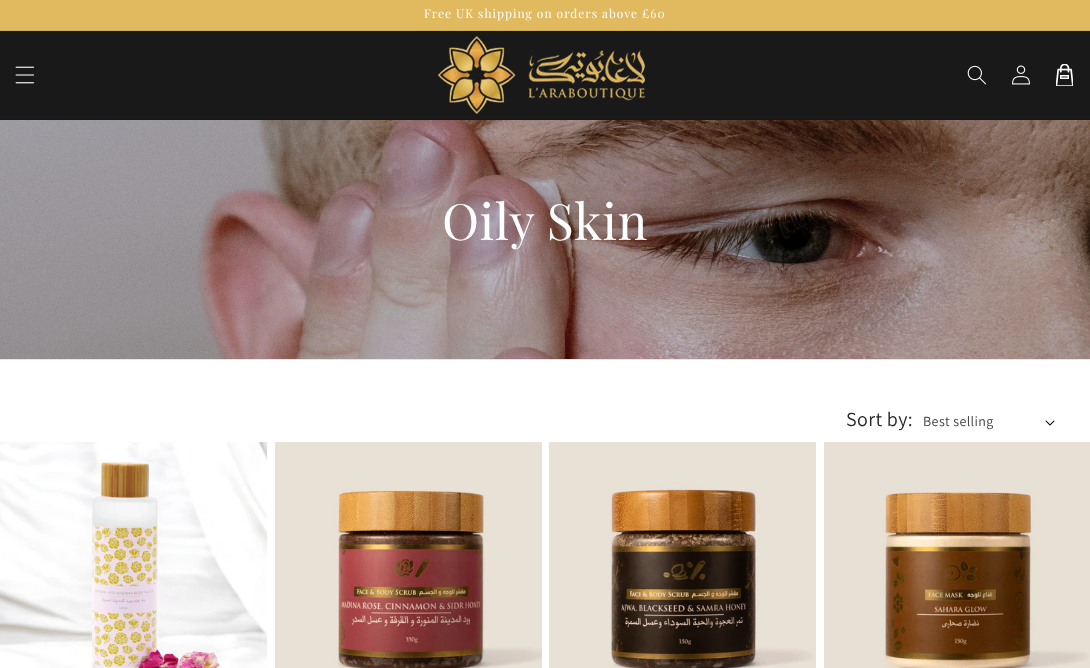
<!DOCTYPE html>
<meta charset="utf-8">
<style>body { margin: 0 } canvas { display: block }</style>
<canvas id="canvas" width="1090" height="668"></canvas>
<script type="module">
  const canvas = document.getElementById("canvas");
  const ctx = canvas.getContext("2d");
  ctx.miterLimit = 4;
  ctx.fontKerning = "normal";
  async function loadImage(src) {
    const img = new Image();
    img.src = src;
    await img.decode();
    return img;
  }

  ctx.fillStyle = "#ffffff";
  ctx.fillRect(0, 0, 1090, 668);
  ctx.fillStyle = "#e1ba60";
  ctx.fillRect(0, 0, 1090, 30);
  ctx.fillStyle = "#cfab58";
  ctx.fillRect(0, 30, 1090, 1);
  ctx.letterSpacing = "1px";
  ctx.font = "12px Playfair Display";
  ctx.fillStyle = "#ffffff";
  ctx.fillText("Free UK shipping on orders above £60", 424, 18);
  ctx.fillStyle = "#191919";
  ctx.fillRect(0, 31, 1090, 88);
  ctx.fillStyle = "#171717";
  ctx.fillRect(0, 119, 1090, 1);
  ctx.drawImage(await loadImage("img1.png"), 15, 66, 20, 18);
  ctx.drawImage(await loadImage("img2.png"), 438, 36, 207, 78);
  ctx.drawImage(await loadImage("img3.png"), 967, 65, 19, 20);
  ctx.drawImage(await loadImage("img4.png"), 1012, 65, 18, 20);
  ctx.drawImage(await loadImage("img5.png"), 1056, 64, 17, 22);
  ctx.drawImage(await loadImage("img6.png"), 0, 120, 1090, 239);
  ctx.letterSpacing = "0.5px";
  ctx.font = "50px Playfair Display";
  ctx.fillStyle = "#ffffff";
  ctx.fillText("Oily Skin", 442, 240);
  ctx.fillStyle = "#e6e6e6";
  ctx.fillRect(0, 359, 1090, 1);
  ctx.letterSpacing = "0.4px";
  ctx.font = "20px Assistant";
  ctx.fillStyle = "#262626";
  ctx.fillText("Sort by:", 846, 426);
  ctx.font = "14px Assistant";
  ctx.fillStyle = "#404040";
  ctx.fillText("Best selling", 923, 426);
  ctx.drawImage(await loadImage("img7.png"), 1045, 420, 10, 6);
  ctx.drawImage(await loadImage("img8.png"), 0, 442, 267, 226);
  ctx.drawImage(await loadImage("img9.png"), 275, 442, 267, 226);
  ctx.drawImage(await loadImage("img10.png"), 549, 442, 267, 226);
  ctx.drawImage(await loadImage("img11.png"), 824, 442, 266, 226);
</script>
